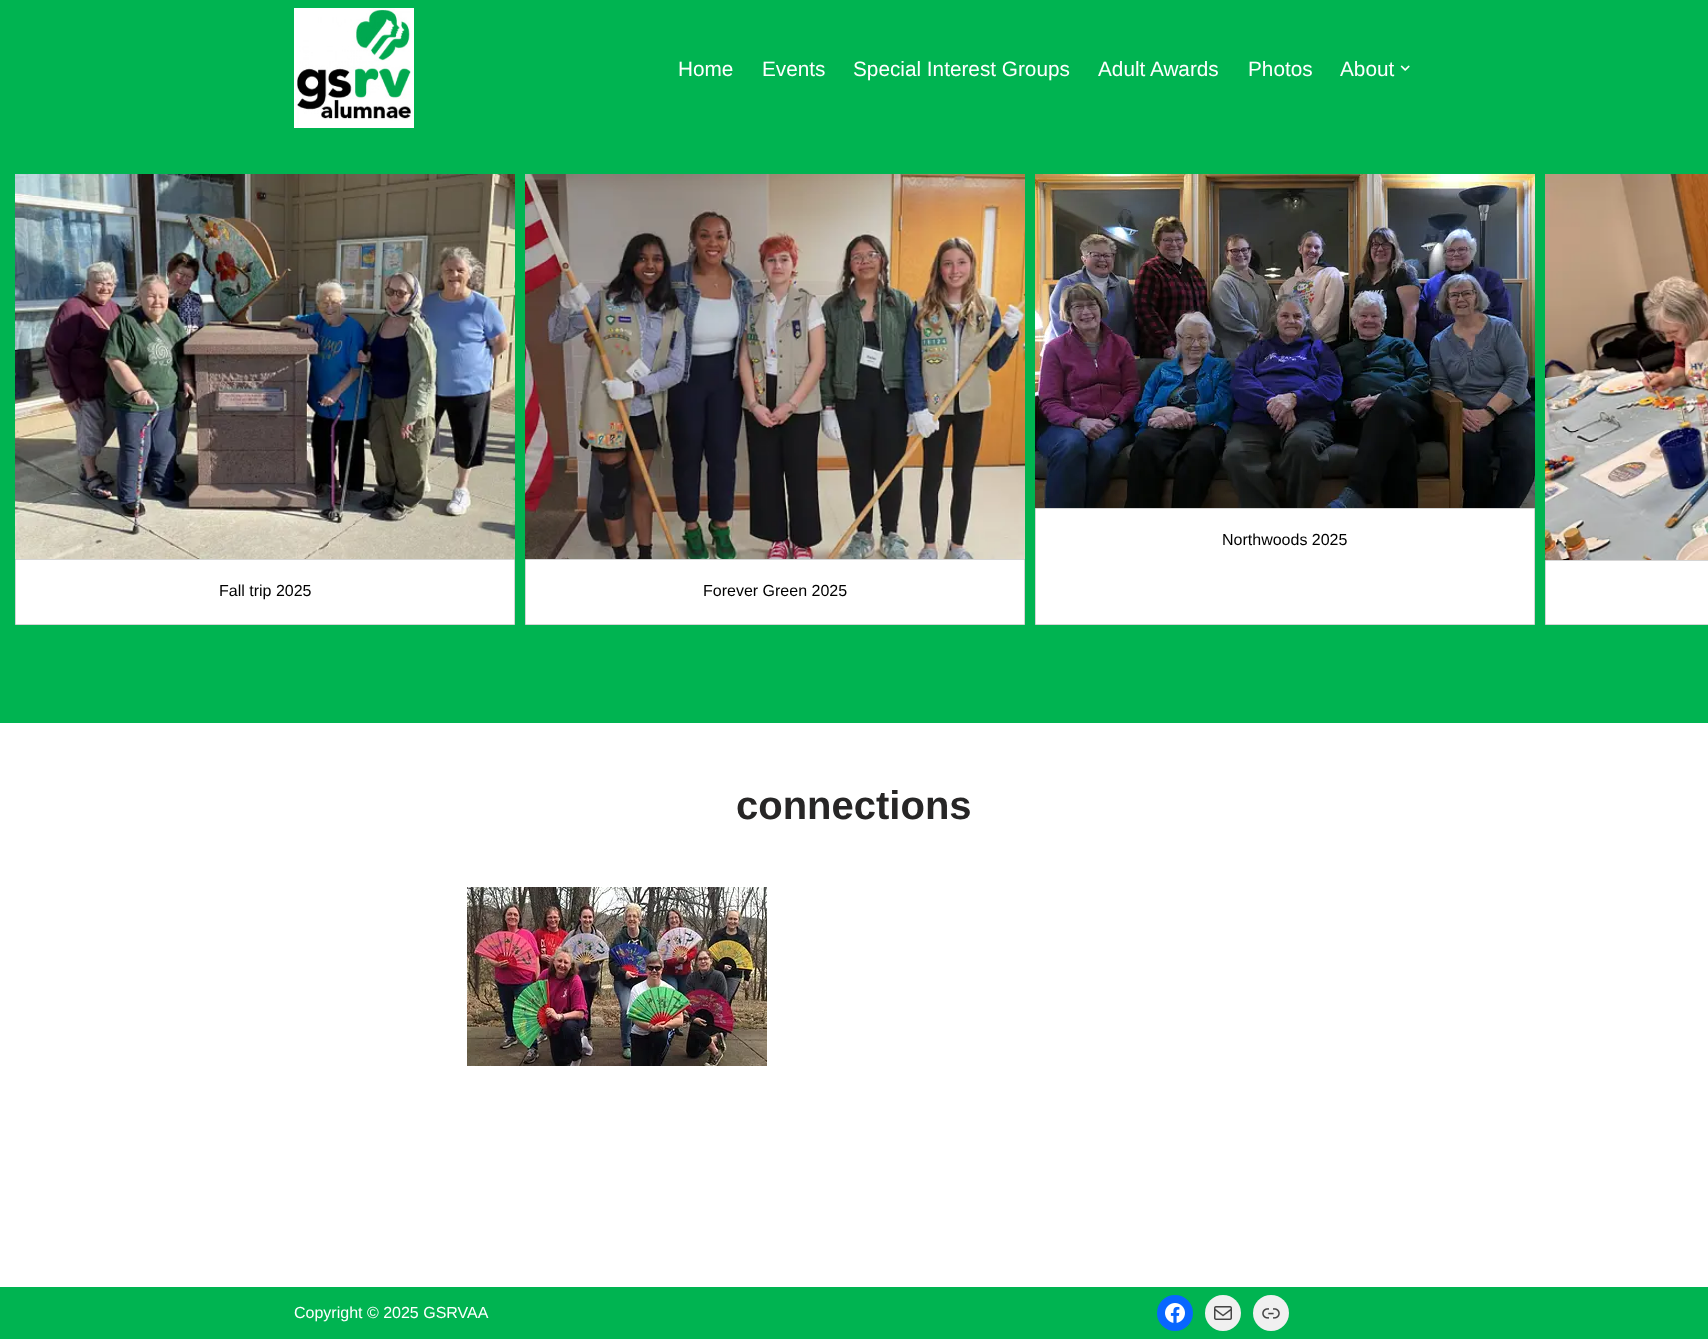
<!DOCTYPE html>
<meta charset="utf-8">
<style>body { margin: 0 } canvas { display: block }</style>
<canvas id="canvas" width="1708" height="1339"></canvas>
<script type="module">
  const canvas = document.getElementById("canvas");
  const ctx = canvas.getContext("2d");
  ctx.miterLimit = 4;
  ctx.fontKerning = "normal";
  async function loadImage(src) {
    const img = new Image();
    img.src = src;
    await img.decode();
    return img;
  }

  ctx.fillStyle = "#ffffff";
  ctx.fillRect(0, 0, 1708, 1339);
  ctx.fillStyle = "#00b451";
  ctx.fillRect(0, 0, 1708, 723);
  ctx.drawImage(await loadImage("img1.png"), 294, 8, 120, 120);
  ctx.font = "20.75px Liberation Sans";
  ctx.fillStyle = "#ffffff";
  ctx.fillText("Home", 678, 76);
  ctx.fillText("Events", 762, 76);
  ctx.fillText("Special Interest Groups", 853, 76);
  ctx.fillText("Adult Awards", 1098, 76);
  ctx.fillText("Photos", 1248, 76);
  ctx.fillText("About", 1340, 76);
  ctx.drawImage(await loadImage("img2.png"), 1400, 65, 10, 6);
  ctx.drawImage(await loadImage("img3.png"), 1035, 174, 500, 334);
  ctx.beginPath();
  ctx.rect(1035.5, 508.5, 499, 116);
  ctx.fill();
  ctx.strokeStyle = "#d5d5d5";
  ctx.stroke();
  ctx.font = "16px Liberation Sans";
  ctx.fillStyle = "#000000";
  ctx.fillText("Northwoods 2025", 1222, 545);
  ctx.drawImage(await loadImage("img4.png"), 1545, 174, 163, 386);
  ctx.fillStyle = "#ffffff";
  ctx.beginPath();
  ctx.rect(1545.5, 560.5, 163, 64);
  ctx.fill();
  ctx.stroke();
  ctx.drawImage(await loadImage("img5.png"), 15, 174, 500, 385);
  ctx.beginPath();
  ctx.rect(15.5, 559.5, 499, 65);
  ctx.fill();
  ctx.stroke();
  ctx.fillStyle = "#000000";
  ctx.fillText("Fall trip 2025", 219, 596);
  ctx.drawImage(await loadImage("img6.png"), 525, 174, 500, 385);
  ctx.fillStyle = "#ffffff";
  ctx.beginPath();
  ctx.rect(525.5, 559.5, 499, 65);
  ctx.fill();
  ctx.stroke();
  ctx.fillStyle = "#000000";
  ctx.fillText("Forever Green 2025", 703, 596);
  ctx.font = "bold 40px Liberation Sans";
  ctx.fillStyle = "#272626";
  ctx.fillText("connections", 736, 819);
  ctx.drawImage(await loadImage("img7.png"), 467, 887, 300, 179);
  ctx.fillStyle = "#00b451";
  ctx.fillRect(0, 1287, 1708, 52);
  ctx.font = "16px Liberation Sans";
  ctx.fillStyle = "#ffffff";
  ctx.fillText("Copyright © 2025 GSRVAA", 294, 1318);
  ctx.fillStyle = "#0866ff";
  ctx.beginPath();
  ctx.arc(1175, 1313, 18, 0, Math.PI * 2);
  ctx.fill();
  ctx.drawImage(await loadImage("img8.png"), 1165, 1303, 20, 20);
  ctx.fillStyle = "#f0f0f0";
  ctx.beginPath();
  ctx.arc(1223, 1313, 18, 0, Math.PI * 2);
  ctx.fill();
  ctx.drawImage(await loadImage("img9.png"), 1214, 1306, 18, 14);
  ctx.beginPath();
  ctx.arc(1271, 1313, 18, 0, Math.PI * 2);
  ctx.fill();
  ctx.drawImage(await loadImage("img10.png"), 1262, 1308, 18, 11);
</script>
